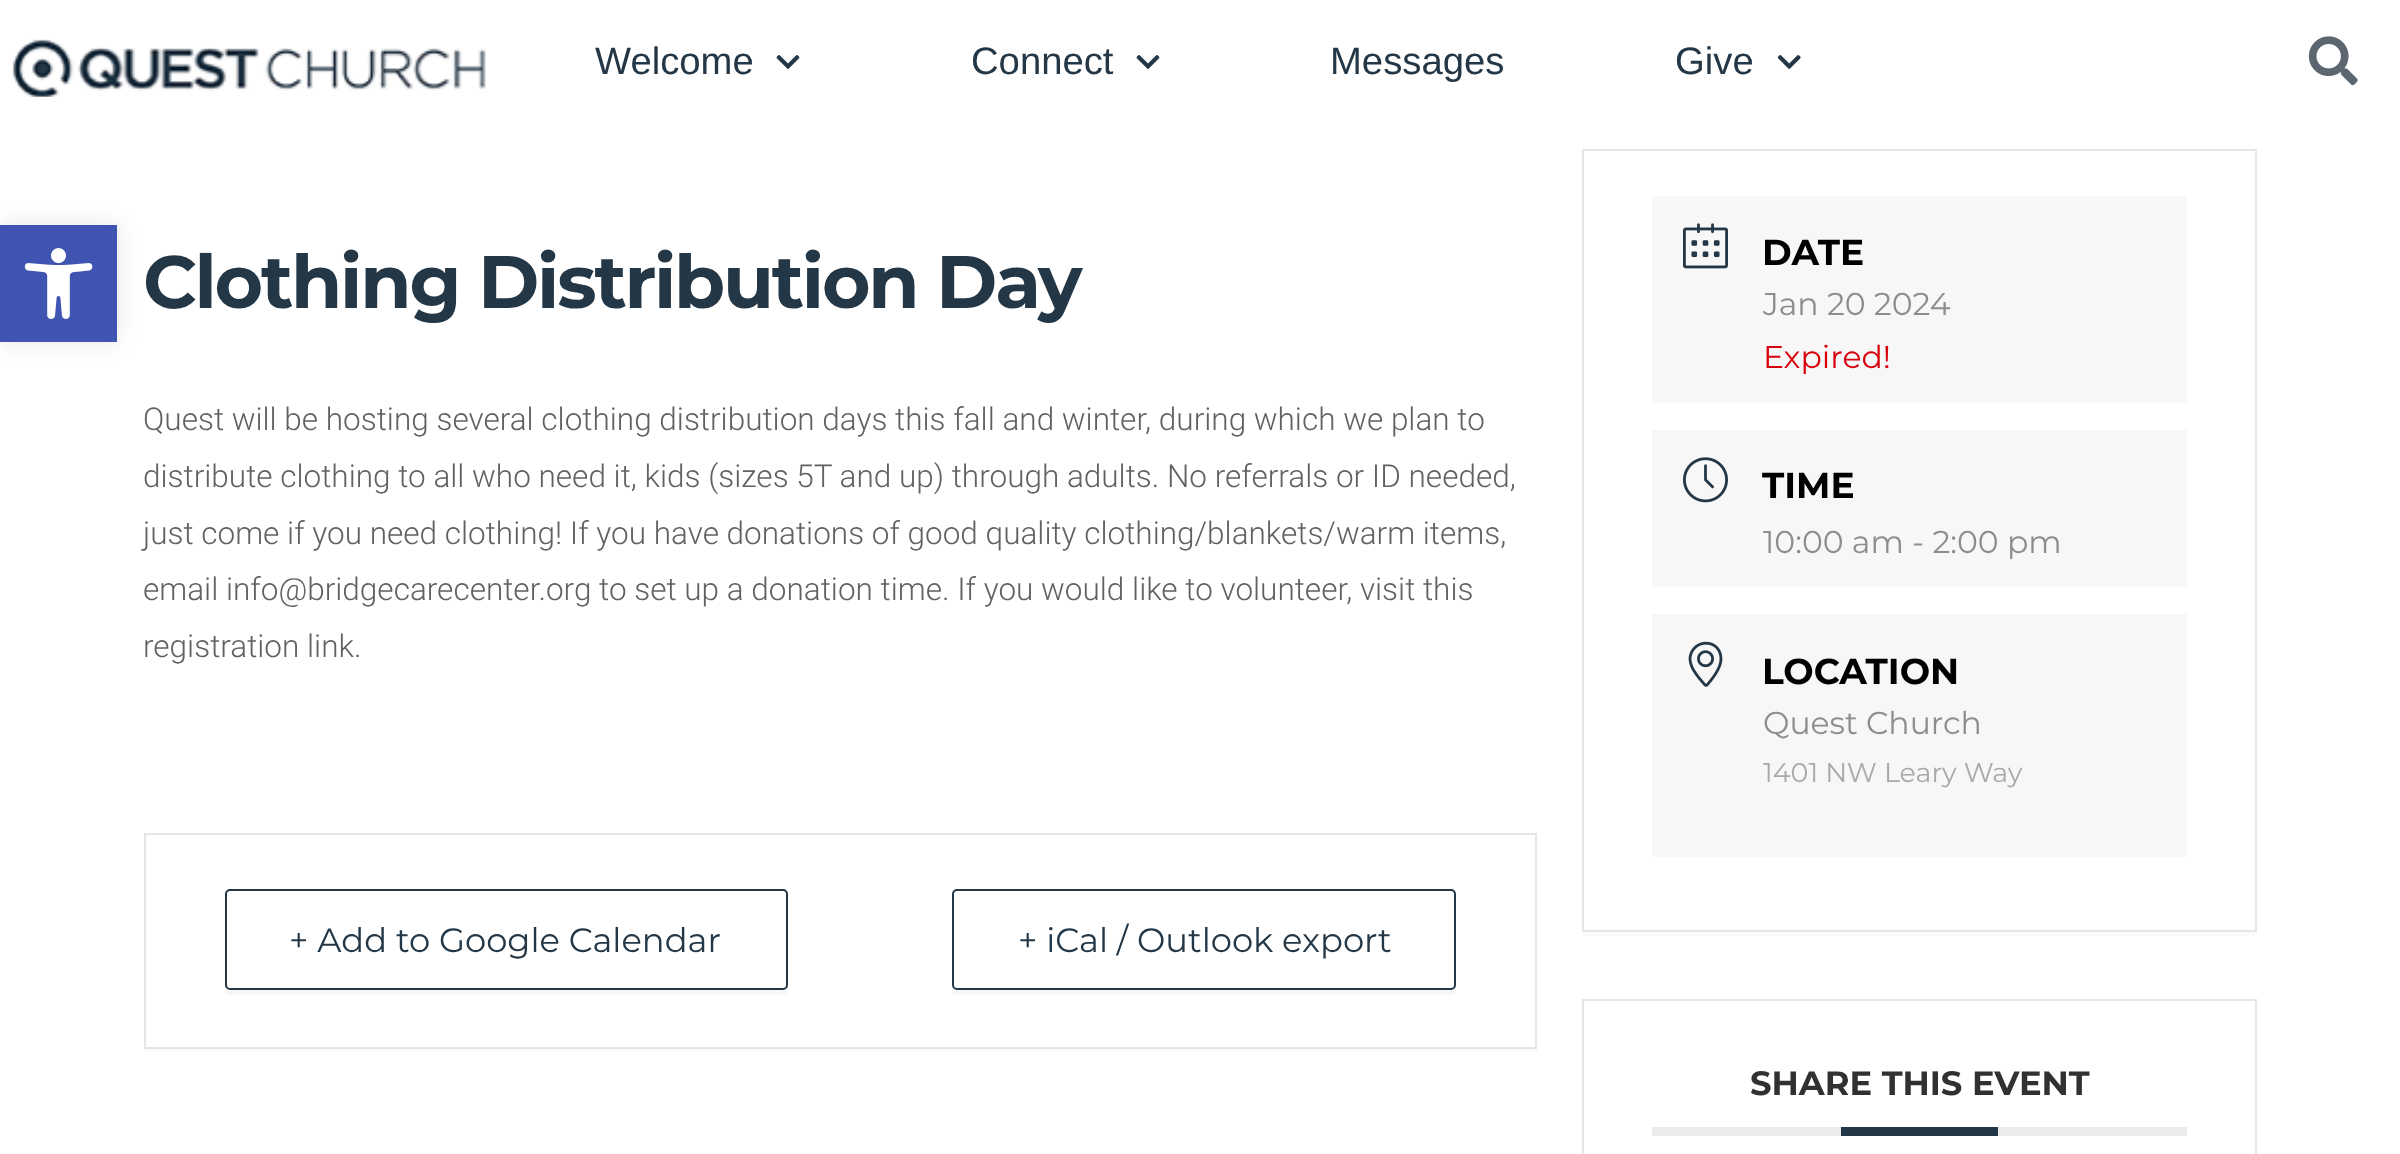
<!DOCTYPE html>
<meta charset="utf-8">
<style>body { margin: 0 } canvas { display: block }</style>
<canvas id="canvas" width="2400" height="1154"></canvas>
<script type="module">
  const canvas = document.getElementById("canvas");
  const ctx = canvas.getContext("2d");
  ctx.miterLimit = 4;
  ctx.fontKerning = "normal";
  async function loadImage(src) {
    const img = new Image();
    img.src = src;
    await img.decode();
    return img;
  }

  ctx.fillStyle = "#ffffff";
  ctx.fillRect(0, 0, 2400, 1154);
  ctx.drawImage(await loadImage("img1.png"), 12, 39, 474, 58);
  ctx.font = "38.25px Liberation Sans";
  ctx.fillStyle = "#243746";
  ctx.fillText("Welcome", 595, 74);
  ctx.drawImage(await loadImage("img2.png"), 776, 55, 24, 14);
  ctx.fillText("Connect", 971, 74);
  ctx.drawImage(await loadImage("img2.png"), 1136, 55, 24, 14);
  ctx.fillText("Messages", 1330, 74);
  ctx.fillText("Give", 1675, 74);
  ctx.drawImage(await loadImage("img3.png"), 1777, 55, 24, 14);
  ctx.drawImage(await loadImage("img4.png"), 2308, 36, 50, 50);
  ctx.fillStyle = "rgba(0, 0, 0, 0.1)";
  ctx.filter = "blur(11px)";
  ctx.beginPath();
  ctx.rect(0, 225, 117, 117);
  ctx.fill();
  ctx.filter = "none";
  ctx.fillStyle = "#4054b2";
  ctx.fillRect(0, 225, 117, 117);
  ctx.drawImage(await loadImage("img5.png"), 24, 248, 69, 71);
  ctx.letterSpacing = "-2.25px";
  ctx.font = "bold 74.25px Montserrat";
  ctx.fillStyle = "#243746";
  ctx.fillText("Clothing Distribution Day", 143, 308);
  ctx.letterSpacing = "0px";
  ctx.font = "300 31.5px Roboto";
  ctx.fillStyle = "#616161";
  ctx.fillText("Quest will be hosting several clothing distribution days this fall and winter, during which we plan to", 143, 430);
  ctx.fillText("distribute clothing to all who need it, kids (sizes 5T and up) through adults. No referrals or ID needed,", 143, 487);
  ctx.fillText("just come if you need clothing! If you have donations of good quality clothing/blankets/warm items,", 143, 544);
  ctx.fillText("email info@bridgecarecenter.org to set up a donation time. If you would like to volunteer, visit this", 143, 600);
  ctx.fillText("registration link.", 143, 657);
  ctx.fillStyle = "#fbfbfb";
  ctx.beginPath();
  ctx.moveTo(144, 1048);
  ctx.lineTo(144, 1053);
  ctx.lineTo(1537, 1053);
  ctx.lineTo(1537, 837);
  ctx.lineTo(1537, 1048);
  ctx.closePath();
  ctx.fill();
  ctx.strokeStyle = "#e6e6e6";
  ctx.lineWidth = 2;
  ctx.strokeRect(145, 834, 1391, 214);
  ctx.fillStyle = "#f7f7f7";
  ctx.beginPath();
  ctx.moveTo(225, 986);
  ctx.lineTo(225, 990);
  ctx.bezierCurveTo(225, 993, 227, 995, 230, 995);
  ctx.lineTo(783, 995);
  ctx.bezierCurveTo(786, 995, 788, 993, 788, 990);
  ctx.lineTo(788, 898);
  ctx.lineTo(788, 896);
  ctx.lineTo(788, 986);
  ctx.bezierCurveTo(788, 988, 785, 990, 783, 990);
  ctx.lineTo(230, 990);
  ctx.bezierCurveTo(227, 990, 225, 988, 225, 986);
  ctx.closePath();
  ctx.fill();
  ctx.beginPath();
  ctx.roundRect(226, 890, 561, 99, 4);
  ctx.strokeStyle = "#243746";
  ctx.stroke();
  ctx.font = "33.75px Montserrat";
  ctx.fillStyle = "#243746";
  ctx.fillText("+ Add to Google Calendar", 289, 952);
  ctx.fillStyle = "#f7f7f7";
  ctx.beginPath();
  ctx.moveTo(952, 987);
  ctx.lineTo(952, 990);
  ctx.bezierCurveTo(952, 993, 954, 995, 957, 995);
  ctx.lineTo(1451, 995);
  ctx.bezierCurveTo(1454, 995, 1456, 993, 1456, 990);
  ctx.lineTo(1456, 896);
  ctx.lineTo(1456, 986);
  ctx.bezierCurveTo(1456, 988, 1454, 990, 1451, 990);
  ctx.lineTo(956, 990);
  ctx.bezierCurveTo(954, 990, 953, 989, 952, 987);
  ctx.closePath();
  ctx.fill();
  ctx.beginPath();
  ctx.roundRect(953, 890, 502, 99, 4);
  ctx.stroke();
  ctx.fillStyle = "#243746";
  ctx.fillText("+ iCal / Outlook export", 1018, 952);
  ctx.fillStyle = "#fbfbfb";
  ctx.beginPath();
  ctx.moveTo(1582, 932);
  ctx.lineTo(1582, 936);
  ctx.lineTo(2257, 936);
  ctx.lineTo(2257, 153);
  ctx.lineTo(2257, 932);
  ctx.closePath();
  ctx.fill();
  ctx.strokeStyle = "#e6e6e6";
  ctx.strokeRect(1583, 150, 673, 781);
  ctx.fillStyle = "#f7f7f7";
  ctx.fillRect(1652, 196, 535, 207);
  ctx.drawImage(await loadImage("img6.png"), 1683, 223, 45, 46);
  ctx.font = "bold 36px Montserrat";
  ctx.fillStyle = "#000000";
  ctx.fillText("DATE", 1762, 265);
  ctx.font = "31.5px Montserrat";
  ctx.fillStyle = "#8d8d8d";
  ctx.fillText("Jan 20 2024", 1763, 315);
  ctx.fillStyle = "#d8000c";
  ctx.fillText("Expired!", 1763, 368);
  ctx.fillStyle = "#f7f7f7";
  ctx.fillRect(1652, 430, 535, 157);
  ctx.drawImage(await loadImage("img7.png"), 1683, 457, 45, 46);
  ctx.font = "bold 36px Montserrat";
  ctx.fillStyle = "#000000";
  ctx.fillText("TIME", 1762, 498);
  ctx.font = "31.5px Montserrat";
  ctx.fillStyle = "#8d8d8d";
  ctx.fillText("10:00 am - 2:00 pm", 1763, 553);
  ctx.fillStyle = "#f7f7f7";
  ctx.fillRect(1652, 614, 535, 243);
  ctx.drawImage(await loadImage("img8.png"), 1688, 641, 35, 46);
  ctx.font = "bold 36px Montserrat";
  ctx.fillStyle = "#000000";
  ctx.fillText("LOCATION", 1762, 684);
  ctx.font = "31.5px Montserrat";
  ctx.fillStyle = "#8d8d8d";
  ctx.fillText("Quest Church", 1763, 734);
  ctx.font = "27px Montserrat";
  ctx.fillStyle = "#a9a9a9";
  ctx.fillText("1401 NW Leary Way", 1763, 782);
  ctx.strokeRect(1583, 1000, 673, 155);
  ctx.fillStyle = "#ebebeb";
  ctx.fillRect(1652, 1127, 535, 9);
  ctx.font = "bold 33.75px Montserrat";
  ctx.fillStyle = "#313131";
  ctx.fillText("SHARE THIS EVENT", 1750, 1095);
  ctx.fillStyle = "#243746";
  ctx.fillRect(1841, 1127, 157, 9);
</script>
